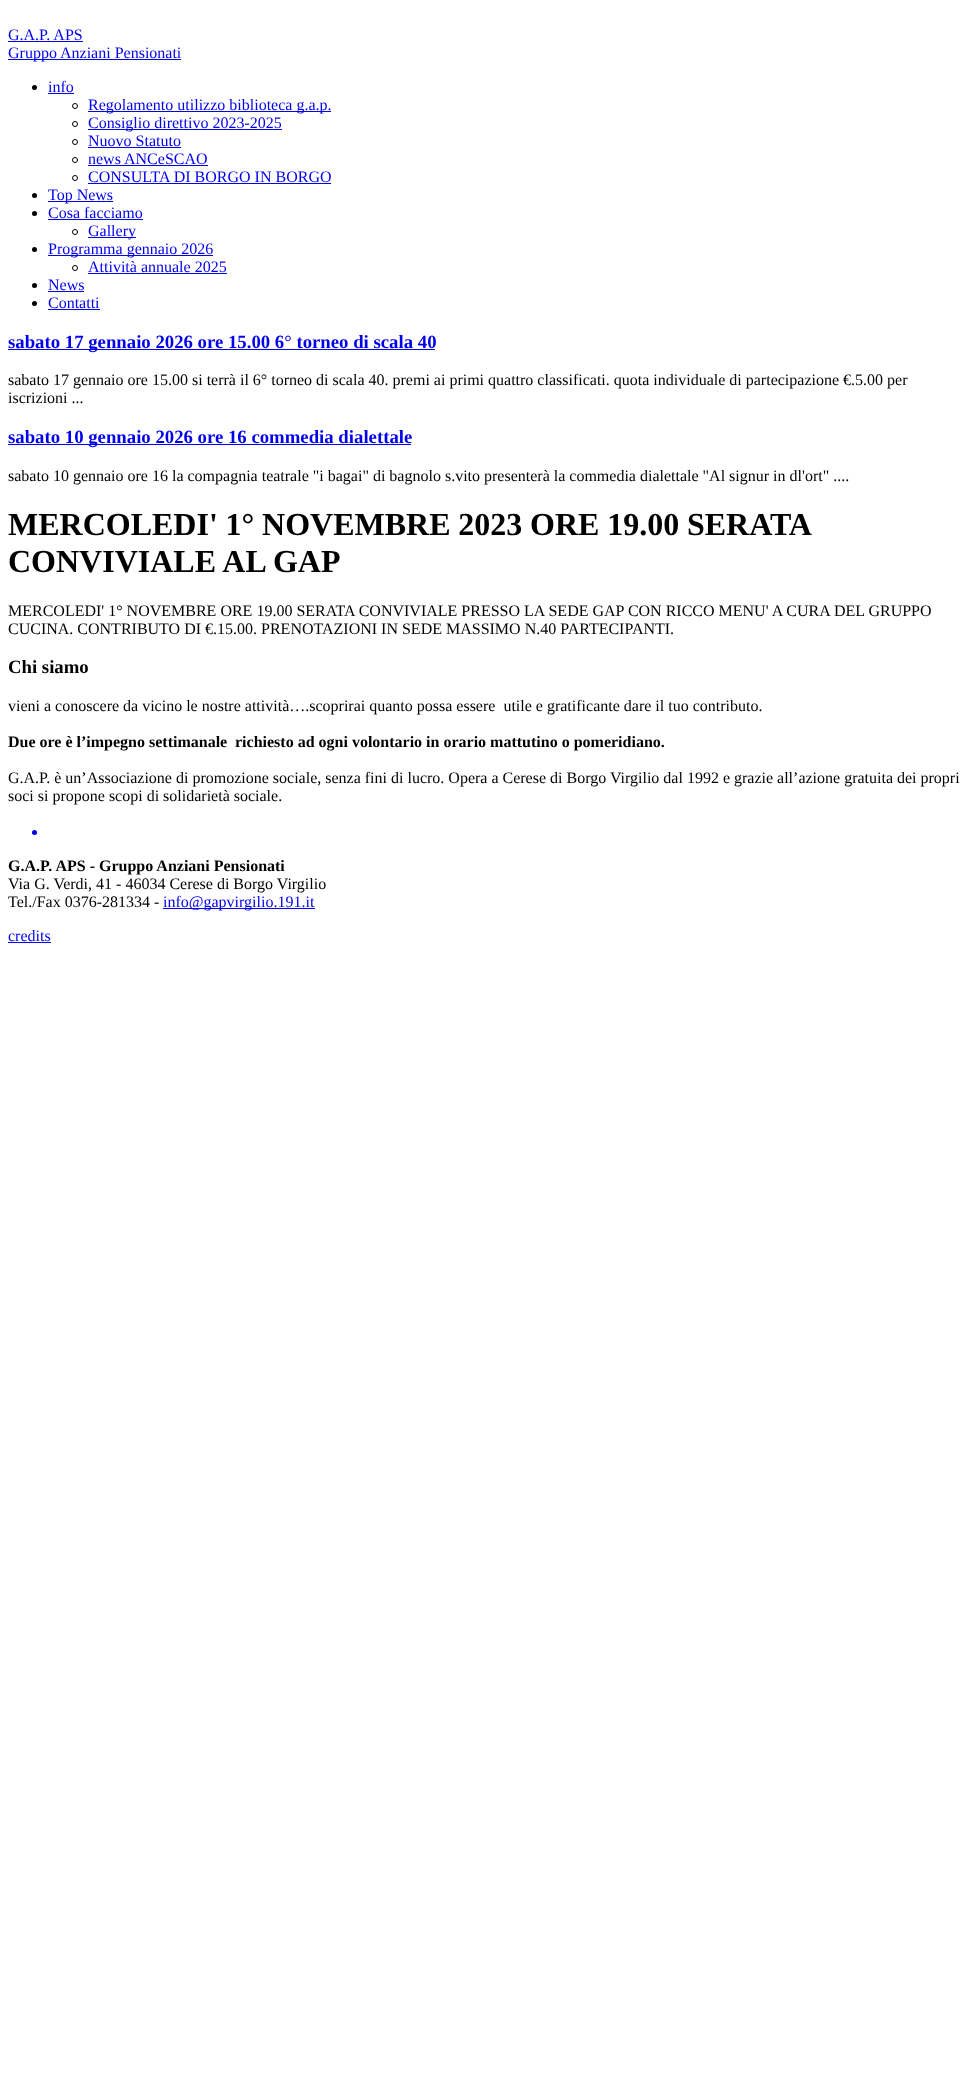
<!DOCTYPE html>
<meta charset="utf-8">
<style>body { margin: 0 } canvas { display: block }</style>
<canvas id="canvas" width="976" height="2091"></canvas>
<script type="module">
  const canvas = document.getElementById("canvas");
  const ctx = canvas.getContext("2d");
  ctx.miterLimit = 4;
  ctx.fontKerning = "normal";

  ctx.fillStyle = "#ffffff";
  ctx.fillRect(0, 0, 976, 2091);
  ctx.font = "16px Liberation Serif";
  ctx.fillStyle = "#0000ee";
  ctx.fillText("G.A.P. APS", 8, 40);
  ctx.fillRect(8, 41, 75, 1);
  ctx.fillRect(8, 59, 173, 1);
  ctx.fillText("Gruppo Anziani Pensionati", 8, 58);
  ctx.fillStyle = "#000000";
  ctx.beginPath();
  ctx.arc(34.5, 87.5, 2.5, 0, Math.PI * 2);
  ctx.fill();
  ctx.fillStyle = "#0000ee";
  ctx.fillText("info", 48, 92);
  ctx.fillRect(48, 93, 26, 1);
  ctx.beginPath();
  ctx.arc(75, 106, 2.5, 0, Math.PI * 2);
  ctx.strokeStyle = "#000000";
  ctx.stroke();
  ctx.fillRect(88, 111, 243, 1);
  ctx.fillText("Regolamento utilizzo biblioteca g.a.p.", 88, 110);
  ctx.beginPath();
  ctx.arc(75, 124, 2.5, 0, Math.PI * 2);
  ctx.stroke();
  ctx.fillRect(88, 129, 194, 1);
  ctx.fillText("Consiglio direttivo 2023-2025", 88, 128);
  ctx.beginPath();
  ctx.arc(75, 142, 2.5, 0, Math.PI * 2);
  ctx.stroke();
  ctx.fillText("Nuovo Statuto", 88, 146);
  ctx.fillRect(88, 147, 93, 1);
  ctx.beginPath();
  ctx.arc(75, 160, 2.5, 0, Math.PI * 2);
  ctx.stroke();
  ctx.fillText("news ANCeSCAO", 88, 164);
  ctx.fillRect(88, 165, 120, 1);
  ctx.beginPath();
  ctx.arc(75, 178, 2.5, 0, Math.PI * 2);
  ctx.stroke();
  ctx.fillText("CONSULTA DI BORGO IN BORGO", 88, 182);
  ctx.fillRect(88, 183, 243, 1);
  ctx.fillStyle = "#000000";
  ctx.beginPath();
  ctx.arc(34.5, 195.5, 2.5, 0, Math.PI * 2);
  ctx.fill();
  ctx.fillStyle = "#0000ee";
  ctx.fillRect(48, 201, 65, 1);
  ctx.fillText("Top News", 48, 200);
  ctx.fillStyle = "#000000";
  ctx.beginPath();
  ctx.arc(34.5, 213.5, 2.5, 0, Math.PI * 2);
  ctx.fill();
  ctx.fillStyle = "#0000ee";
  ctx.fillText("Cosa facciamo", 48, 218);
  ctx.fillRect(48, 219, 95, 1);
  ctx.beginPath();
  ctx.arc(75, 232, 2.5, 0, Math.PI * 2);
  ctx.stroke();
  ctx.fillRect(88, 237, 48, 1);
  ctx.fillText("Gallery", 88, 236);
  ctx.fillStyle = "#000000";
  ctx.beginPath();
  ctx.arc(34.5, 249.5, 2.5, 0, Math.PI * 2);
  ctx.fill();
  ctx.fillStyle = "#0000ee";
  ctx.fillRect(48, 255, 165, 1);
  ctx.fillText("Programma gennaio 2026", 48, 254);
  ctx.beginPath();
  ctx.arc(75, 268, 2.5, 0, Math.PI * 2);
  ctx.stroke();
  ctx.fillText("Attività annuale 2025", 88, 272);
  ctx.fillRect(88, 273, 139, 1);
  ctx.fillStyle = "#000000";
  ctx.beginPath();
  ctx.arc(34.5, 285.5, 2.5, 0, Math.PI * 2);
  ctx.fill();
  ctx.fillStyle = "#0000ee";
  ctx.fillText("News", 48, 290);
  ctx.fillRect(48, 291, 36, 1);
  ctx.fillStyle = "#000000";
  ctx.beginPath();
  ctx.arc(34.5, 303.5, 2.5, 0, Math.PI * 2);
  ctx.fill();
  ctx.fillStyle = "#0000ee";
  ctx.fillText("Contatti", 48, 308);
  ctx.fillRect(48, 309, 52, 1);
  ctx.fillRect(8, 349, 427, 1);
  ctx.font = "bold 18.75px Liberation Serif";
  ctx.fillText("sabato 17 gennaio 2026 ore 15.00 6° torneo di scala 40", 8, 348);
  ctx.font = "16px Liberation Serif";
  ctx.fillStyle = "#000000";
  ctx.fillText("sabato 17 gennaio ore 15.00 si terrà il 6° torneo di scala 40. premi ai primi quattro classificati. quota individuale di partecipazione €.5.00 per", 8, 385);
  ctx.fillText("iscrizioni ...", 8, 403);
  ctx.fillStyle = "#0000ee";
  ctx.fillRect(8, 444, 403, 1);
  ctx.font = "bold 18.75px Liberation Serif";
  ctx.fillText("sabato 10 gennaio 2026 ore 16 commedia dialettale", 8, 443);
  ctx.font = "16px Liberation Serif";
  ctx.fillStyle = "#000000";
  ctx.fillText("sabato 10 gennaio ore 16 la compagnia teatrale \"i bagai\" di bagnolo s.vito presenterà la commedia dialettale \"Al signur in dl'ort\" ....", 8, 481);
  ctx.wordSpacing = "-0.25px";
  ctx.font = "bold 32px Liberation Serif";
  ctx.fillText("MERCOLEDI' 1° NOVEMBRE 2023 ORE 19.00 SERATA", 8, 535);
  ctx.wordSpacing = "0px";
  ctx.fillText("CONVIVIALE AL GAP", 8, 572);
  ctx.font = "16px Liberation Serif";
  ctx.fillText("MERCOLEDI' 1° NOVEMBRE ORE 19.00 SERATA CONVIVIALE PRESSO LA SEDE GAP CON RICCO MENU' A CURA DEL GRUPPO", 8, 616);
  ctx.fillText("CUCINA. CONTRIBUTO DI €.15.00. PRENOTAZIONI IN SEDE MASSIMO N.40 PARTECIPANTI.", 8, 634);
  ctx.font = "bold 18.75px Liberation Serif";
  ctx.fillText("Chi siamo", 8, 673);
  ctx.font = "16px Liberation Serif";
  ctx.fillText("vieni a conoscere da vicino le nostre attività….scoprirai quanto possa essere  utile e gratificante dare il tuo contributo.", 8, 711);
  ctx.font = "bold 16px Liberation Serif";
  ctx.fillText("Due ore è l’impegno settimanale", 8, 747);
  ctx.fillText("richiesto ad ogni volontario in orario mattutino o pomeridiano.", 235, 747);
  ctx.font = "16px Liberation Serif";
  ctx.fillText("G.A.P. è un’Associazione di promozione sociale, senza fini di lucro. Opera a Cerese di Borgo Virgilio dal 1992 e grazie all’azione gratuita dei propri", 8, 783);
  ctx.fillText("soci si propone scopi di solidarietà sociale.", 8, 801);
  ctx.fillStyle = "#0000ee";
  ctx.beginPath();
  ctx.arc(34.5, 832.5, 2.5, 0, Math.PI * 2);
  ctx.fill();
  ctx.font = "bold 16px Liberation Serif";
  ctx.fillStyle = "#000000";
  ctx.fillText("G.A.P. APS - Gruppo Anziani Pensionati", 8, 871);
  ctx.font = "16px Liberation Serif";
  ctx.fillText("Via G. Verdi, 41 - 46034 Cerese di Borgo Virgilio", 8, 889);
  ctx.fillText("Tel./Fax 0376-281334 -", 8, 907);
  ctx.fillStyle = "#0000ee";
  ctx.fillRect(163, 908, 152, 1);
  ctx.fillText("info@gapvirgilio.191.it", 163, 907);
  ctx.fillText("credits", 8, 941);
  ctx.fillRect(8, 942, 43, 1);
</script>
